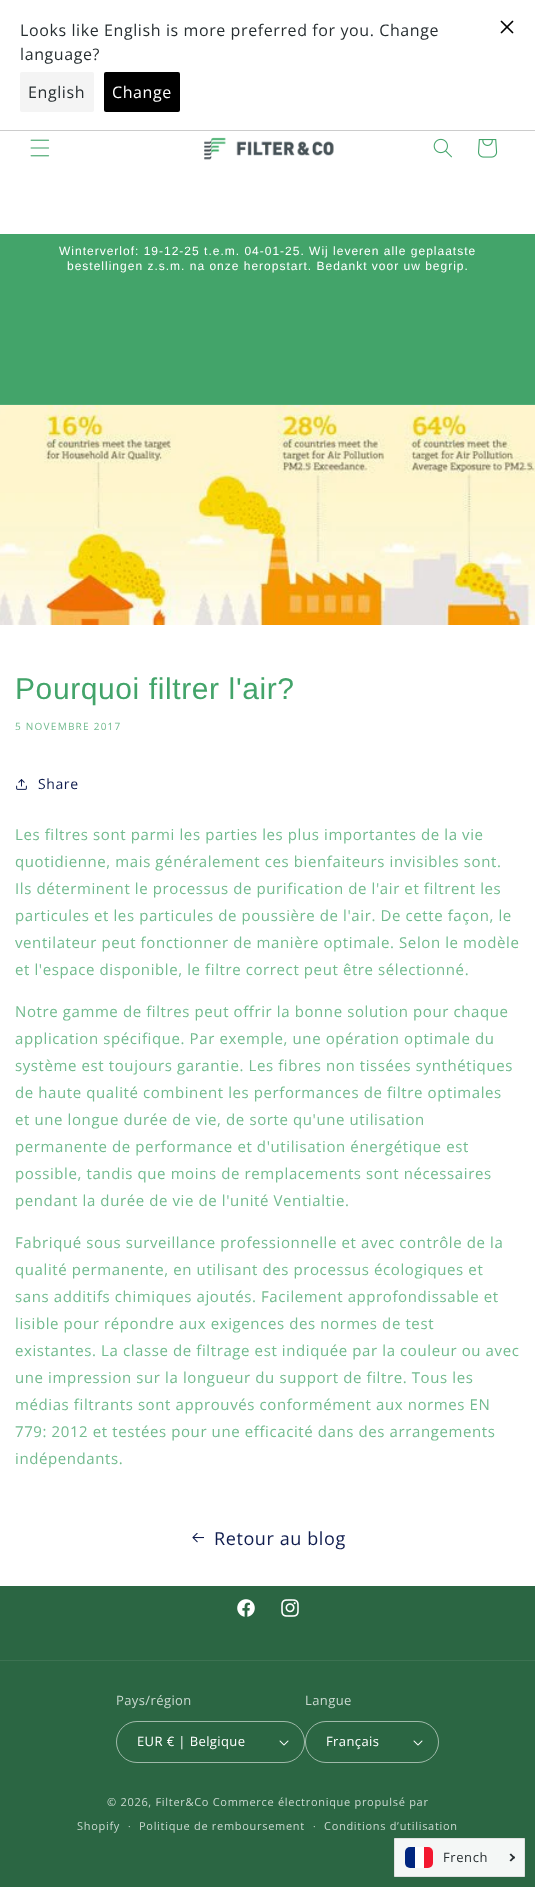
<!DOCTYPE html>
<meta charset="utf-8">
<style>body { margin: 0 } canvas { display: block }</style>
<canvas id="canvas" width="535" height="1887"></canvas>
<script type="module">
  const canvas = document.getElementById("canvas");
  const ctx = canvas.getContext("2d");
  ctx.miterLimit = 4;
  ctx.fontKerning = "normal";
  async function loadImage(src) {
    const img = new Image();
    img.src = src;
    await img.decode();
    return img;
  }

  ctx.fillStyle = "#ffffff";
  ctx.fillRect(0, 0, 535, 1887);
  ctx.fillStyle = "#cccccc";
  ctx.fillRect(0, 130, 535, 1);
  ctx.letterSpacing = "0.6px";
  ctx.font = "16px Open Sans";
  ctx.fillStyle = "#272e31";
  ctx.fillText("Looks like English is more preferred for you. Change", 20, 36);
  ctx.fillText("language?", 20, 60);
  ctx.fillStyle = "#f4f4f4";
  ctx.beginPath();
  ctx.roundRect(20, 72, 74, 40, 2);
  ctx.fill();
  ctx.fillStyle = "#272e31";
  ctx.fillText("English", 28, 98);
  ctx.fillStyle = "#000000";
  ctx.beginPath();
  ctx.roundRect(104, 72, 76, 40, 2);
  ctx.fill();
  ctx.fillStyle = "#ffffff";
  ctx.fillText("Change", 112, 98);
  ctx.drawImage(await loadImage("img1.png"), 500, 20, 14, 14);
  ctx.drawImage(await loadImage("img2.png"), 30, 139, 20, 18);
  ctx.drawImage(await loadImage("img3.png"), 204, 137, 130, 23);
  ctx.drawImage(await loadImage("img4.png"), 433, 138, 19, 20);
  ctx.drawImage(await loadImage("img5.png"), 478, 139, 20, 19);
  ctx.fillStyle = "#43a46a";
  ctx.fillRect(0, 234, 535, 170);
  ctx.fillStyle = "#52ab76";
  ctx.fillRect(0, 404, 535, 1);
  ctx.letterSpacing = "1px";
  ctx.font = "12px Liberation Sans";
  ctx.fillStyle = "#ffffff";
  ctx.fillText("Winterverlof: 19-12-25 t.e.m. 04-01-25. Wij leveren alle geplaatste", 59, 255);
  ctx.fillText("bestellingen z.s.m. na onze heropstart. Bedankt voor uw begrip.", 67, 270);
  ctx.drawImage(await loadImage("img6.png"), 0, 405, 535, 220);
  ctx.letterSpacing = "0.6px";
  ctx.font = "30px Liberation Sans";
  ctx.fillStyle = "#43a46a";
  ctx.fillText("Pourquoi filtrer l'air?", 15, 699);
  ctx.letterSpacing = "1.25px";
  ctx.font = "10px Open Sans";
  ctx.fillStyle = "#72bb8f";
  ctx.fillText("5 NOVEMBRE 2017", 15, 730);
  ctx.drawImage(await loadImage("img7.png"), 16, 779, 11, 11);
  ctx.letterSpacing = "0.6px";
  ctx.font = "14px Open Sans";
  ctx.fillStyle = "#0e1b4d";
  ctx.fillText("Share", 38, 789);
  ctx.font = "15px Open Sans";
  ctx.fillStyle = "#72bb8f";
  ctx.fillText("Les filtres sont parmi les parties les plus importantes de la vie", 15, 840);
  ctx.fillText("quotidienne, mais généralement ces bienfaiteurs invisibles sont.", 15, 867);
  ctx.fillText("Ils déterminent le processus de purification de l'air et filtrent les", 15, 894);
  ctx.fillText("particules et les particules de poussière de l'air. De cette façon, le", 15, 921);
  ctx.fillText("ventilateur peut fonctionner de manière optimale. Selon le modèle", 15, 948);
  ctx.fillText("et l'espace disponible, le filtre correct peut être sélectionné.", 15, 975);
  ctx.fillText("Notre gamme de filtres peut offrir la bonne solution pour chaque", 15, 1017);
  ctx.fillText("application spécifique. Par exemple, une opération optimale du", 15, 1044);
  ctx.fillText("système est toujours garantie. Les fibres non tissées synthétiques", 15, 1071);
  ctx.fillText("de haute qualité combinent les performances de filtre optimales", 15, 1098);
  ctx.fillText("et une longue durée de vie, de sorte qu'une utilisation", 15, 1125);
  ctx.fillText("permanente de performance et d'utilisation énergétique est", 15, 1152);
  ctx.fillText("possible, tandis que moins de remplacements sont nécessaires", 15, 1179);
  ctx.fillText("pendant la durée de vie de l'unité Ventialtie.", 15, 1206);
  ctx.fillText("Fabriqué sous surveillance professionnelle et avec contrôle de la", 15, 1248);
  ctx.fillText("qualité permanente, en utilisant des processus écologiques et", 15, 1275);
  ctx.fillText("sans additifs chimiques ajoutés. Facilement approfondissable et", 15, 1302);
  ctx.fillText("lisible pour répondre aux exigences des normes de test", 15, 1329);
  ctx.fillText("existantes. La classe de filtrage est indiquée par la couleur ou avec", 15, 1356);
  ctx.fillText("une impression sur la longueur du support de filtre. Tous les", 15, 1383);
  ctx.fillText("médias filtrants sont approuvés conformément aux normes EN", 15, 1410);
  ctx.fillText("779: 2012 et testées pour une efficacité dans des arrangements", 15, 1437);
  ctx.fillText("indépendants.", 15, 1464);
  ctx.drawImage(await loadImage("img8.png"), 192, 1533, 12, 10);
  ctx.font = "18px Open Sans";
  ctx.fillStyle = "#0e1b4d";
  ctx.fillText("Retour au blog", 214, 1545);
  ctx.fillStyle = "#2b6643";
  ctx.fillRect(0, 1586, 535, 301);
  ctx.drawImage(await loadImage("img9.png"), 237, 1599, 18, 18);
  ctx.drawImage(await loadImage("img10.png"), 281, 1599, 18, 18);
  ctx.fillStyle = "#3c7252";
  ctx.fillRect(0, 1660, 535, 1);
  ctx.letterSpacing = "0.4px";
  ctx.font = "13px Open Sans";
  ctx.fillStyle = "#cad9d0";
  ctx.fillText("Pays/région", 116, 1705);
  ctx.drawImage(await loadImage("img11.png"), 279, 1740, 10, 6);
  ctx.beginPath();
  ctx.roundRect(116.5, 1721.5, 188, 41, 20.5);
  ctx.strokeStyle = "#a0baaa";
  ctx.stroke();
  ctx.fillStyle = "#ffffff";
  ctx.fillText("EUR € | Belgique", 137, 1746);
  ctx.fillStyle = "#cad9d0";
  ctx.fillText("Langue", 305, 1705);
  ctx.drawImage(await loadImage("img11.png"), 413, 1740, 10, 6);
  ctx.beginPath();
  ctx.roundRect(305.5, 1721.5, 133, 41, 20.5);
  ctx.stroke();
  ctx.fillStyle = "#ffffff";
  ctx.fillText("Français", 326, 1746);
  ctx.letterSpacing = "0.7px";
  ctx.font = "11px Open Sans";
  ctx.fillStyle = "#cad9d0";
  ctx.fillText("© 2026, Filter&Co Commerce électronique propulsé par", 107, 1806);
  ctx.fillText("Shopify", 77, 1830);
  ctx.font = "10px Open Sans";
  ctx.fillText("·", 128, 1830);
  ctx.font = "11px Open Sans";
  ctx.fillText("Politique de remboursement", 139, 1830);
  ctx.font = "10px Open Sans";
  ctx.fillText("·", 313, 1830);
  ctx.font = "11px Open Sans";
  ctx.fillText("Conditions d’utilisation", 324, 1830);
  ctx.fillStyle = "#f4f7f6";
  ctx.beginPath();
  ctx.rect(394.5, 1838.5, 130, 38);
  ctx.fill();
  ctx.strokeStyle = "#e0e0e0";
  ctx.stroke();
  ctx.fillStyle = "#ffffff";
  ctx.beginPath();
  ctx.roundRect(405, 1847, 28, 21, 5);
  ctx.fill();
  ctx.fillStyle = "#00267f";
  ctx.beginPath();
  ctx.roundRect(405, 1847, 10, 21, [5, 0, 0, 5]);
  ctx.fill();
  ctx.fillStyle = "#f31830";
  ctx.beginPath();
  ctx.roundRect(424, 1847, 9, 21, [0, 5, 5, 0]);
  ctx.fill();
  ctx.letterSpacing = "0.6px";
  ctx.font = "13px Open Sans";
  ctx.fillStyle = "#272e31";
  ctx.fillText("French", 443, 1862);
  ctx.beginPath();
  ctx.moveTo(511, 1853.5);
  ctx.lineTo(515, 1857.5);
  ctx.lineTo(514, 1859);
  ctx.lineTo(509.5, 1854.5);
  ctx.closePath();
  ctx.fill();
  ctx.beginPath();
  ctx.moveTo(514, 1856);
  ctx.lineTo(515, 1857.5);
  ctx.lineTo(511, 1861.5);
  ctx.lineTo(509.5, 1860.5);
  ctx.closePath();
  ctx.fill();
</script>
